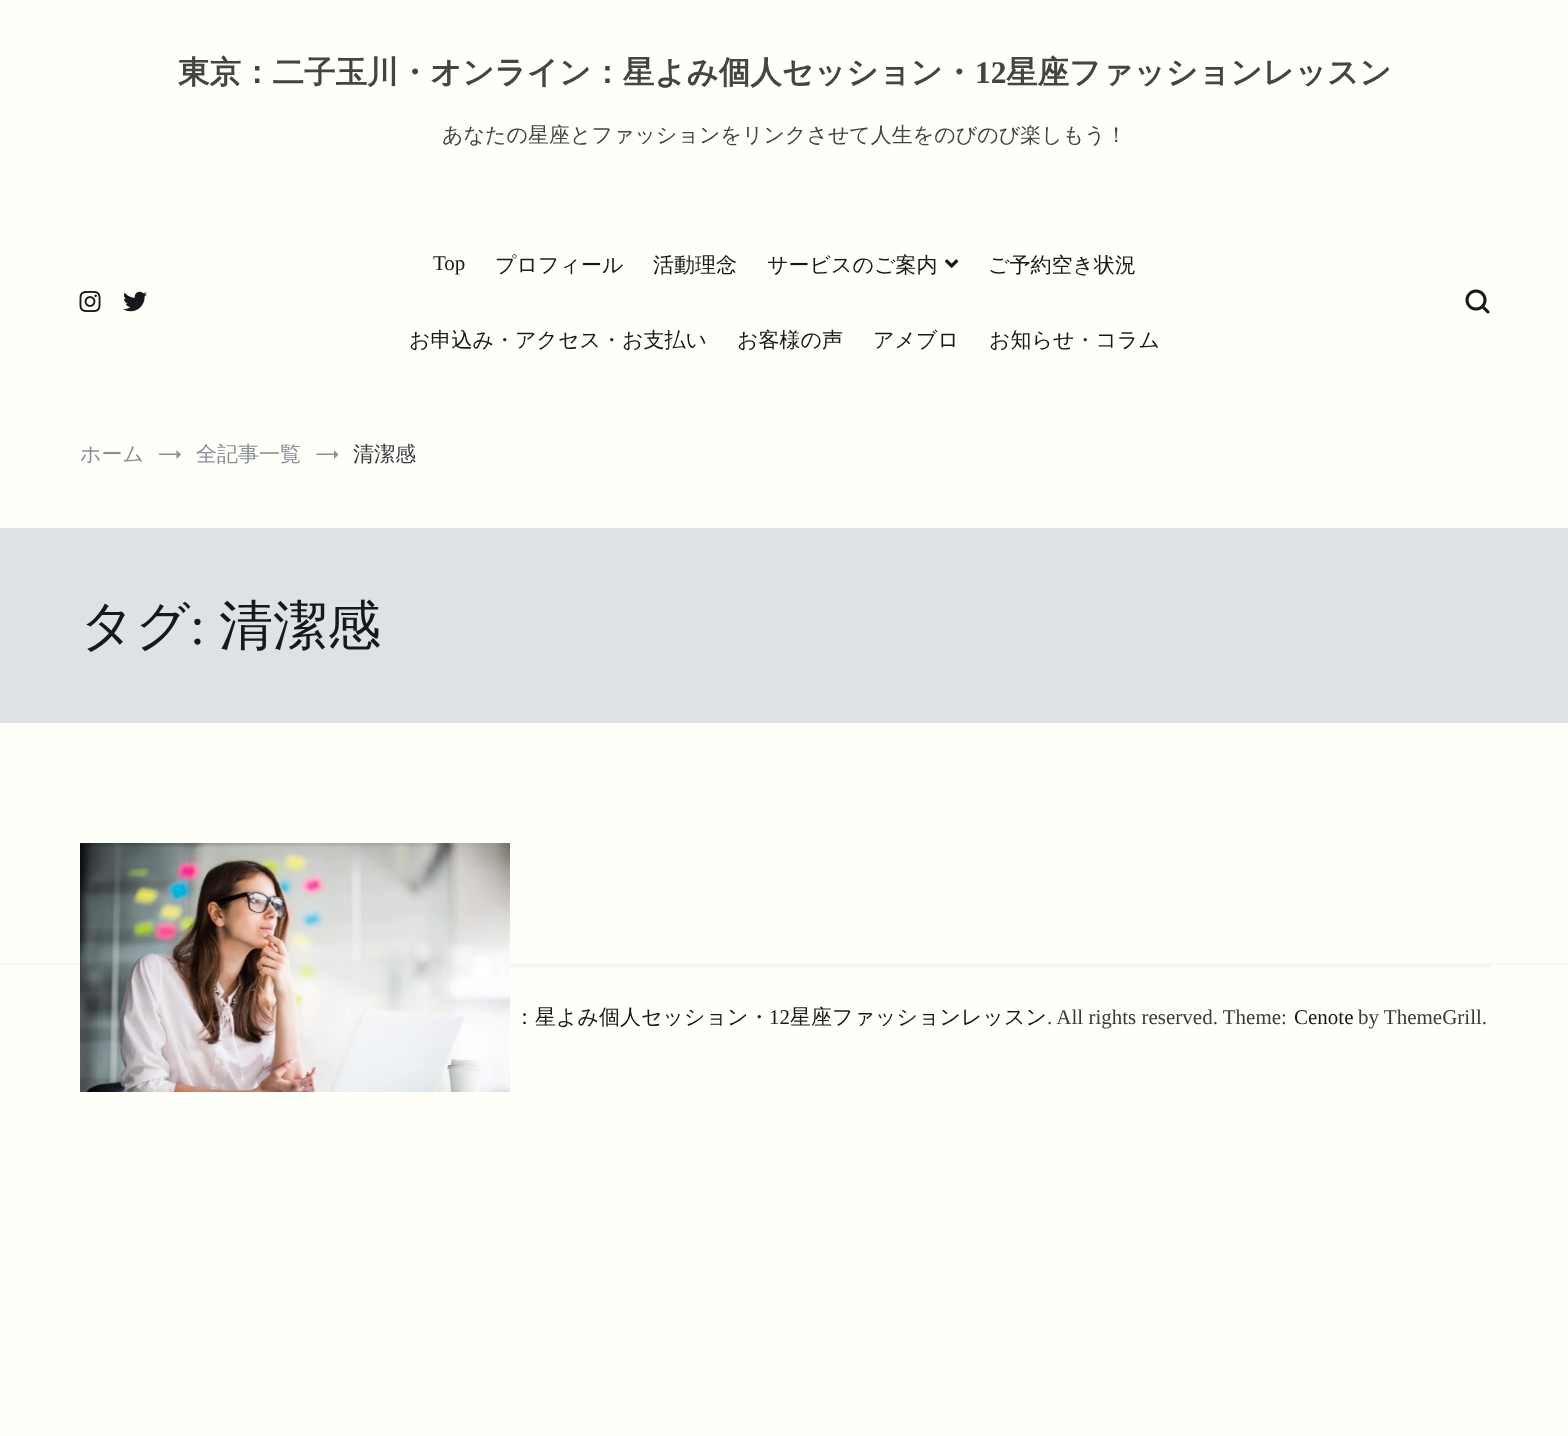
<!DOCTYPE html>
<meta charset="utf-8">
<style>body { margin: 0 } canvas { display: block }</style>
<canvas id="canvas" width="1568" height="1436"></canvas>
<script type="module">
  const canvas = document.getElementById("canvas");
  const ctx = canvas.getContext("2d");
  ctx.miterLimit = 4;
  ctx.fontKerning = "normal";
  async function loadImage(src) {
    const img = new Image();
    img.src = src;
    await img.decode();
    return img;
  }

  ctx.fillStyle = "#fffff9";
  ctx.fillRect(0, 0, 1568, 1436);
  ctx.font = "bold 31.5px WenQuanYi Zen Hei";
  ctx.fillStyle = "#444444";
  ctx.fillText("東京：二子玉川・オンライン：星よみ個人セッション・", 178, 83);
  ctx.font = "bold 31.5px Liberation Serif";
  ctx.fillText("12", 975, 83);
  ctx.font = "bold 31.5px WenQuanYi Zen Hei";
  ctx.fillText("星座ファッションレッスン", 1006, 83);
  ctx.font = "500 21px WenQuanYi Zen Hei";
  ctx.fillText("あなたの星座とファッションをリンクさせて人生をのびのび楽しもう！", 442, 142);
  ctx.drawImage(await loadImage("img1.png"), 79, 291, 22, 21);
  ctx.drawImage(await loadImage("img2.png"), 123, 291, 24, 21);
  ctx.font = "21px Liberation Serif";
  ctx.fillStyle = "#16181a";
  ctx.fillText("Top", 433, 270);
  ctx.font = "500 21px WenQuanYi Zen Hei";
  ctx.fillText("プロフィール", 495, 272);
  ctx.fillText("活動理念", 653, 272);
  ctx.fillText("サービスのご案内", 767, 272);
  ctx.drawImage(await loadImage("img3.png"), 945, 259, 14, 9);
  ctx.fillText("ご予約空き状況", 988, 272);
  ctx.fillText("お申込み・アクセス・お支払い", 409, 347);
  ctx.fillText("お客様の声", 737, 347);
  ctx.fillText("アメブロ", 873, 347);
  ctx.fillText("お知らせ・コラム", 989, 347);
  ctx.drawImage(await loadImage("img4.png"), 1465, 289, 25, 25);
  ctx.fillStyle = "#868e96";
  ctx.fillText("ホーム", 80, 461);
  ctx.beginPath();
  ctx.moveTo(181, 454.5);
  ctx.lineTo(176.5, 459);
  ctx.lineTo(176.5, 450);
  ctx.closePath();
  ctx.moveTo(159, 453.5);
  ctx.lineTo(176.5, 453.5);
  ctx.lineTo(176.5, 455);
  ctx.lineTo(159, 455);
  ctx.closePath();
  ctx.fill();
  ctx.fillText("全記事一覧", 196, 461);
  ctx.beginPath();
  ctx.moveTo(338.5, 454.5);
  ctx.lineTo(334, 459);
  ctx.lineTo(334, 450);
  ctx.closePath();
  ctx.moveTo(316.5, 453.5);
  ctx.lineTo(334, 453.5);
  ctx.lineTo(334, 455);
  ctx.lineTo(316.5, 455);
  ctx.closePath();
  ctx.fill();
  ctx.fillStyle = "#363b40";
  ctx.fillText("清潔感", 353, 461);
  ctx.fillStyle = "#dee2e6";
  ctx.fillRect(0, 528, 1568, 195);
  ctx.font = "500 54px WenQuanYi Zen Hei";
  ctx.fillStyle = "#16181a";
  ctx.fillText("タグ", 80, 644);
  ctx.font = "54px Liberation Serif";
  ctx.fillText(":", 190, 644);
  ctx.font = "500 54px WenQuanYi Zen Hei";
  ctx.fillText("清潔感", 219, 644);
  ctx.fillStyle = "#f7f7f7";
  ctx.fillRect(0, 963, 1568, 2);
  ctx.drawImage(await loadImage("img5.png"), 80, 843, 430, 249);
  ctx.fillStyle = "#f1f3f5";
  ctx.fillRect(510, 965, 980, 2);
  ctx.font = "500 21px WenQuanYi Zen Hei";
  ctx.fillStyle = "#16181a";
  ctx.fillText("：星よみ個人セッション・", 514, 1024);
  ctx.font = "21px Liberation Serif";
  ctx.fillText("12", 769, 1024);
  ctx.font = "500 21px WenQuanYi Zen Hei";
  ctx.fillText("星座ファッションレッスン", 790, 1024);
  ctx.font = "21px Liberation Serif";
  ctx.fillStyle = "#363b40";
  ctx.fillText(". All rights reserved. Theme:", 1047, 1024);
  ctx.fillStyle = "#16181a";
  ctx.fillText("Cenote", 1294, 1024);
  ctx.fillStyle = "#363b40";
  ctx.fillText("by ThemeGrill.", 1358, 1024);
</script>
